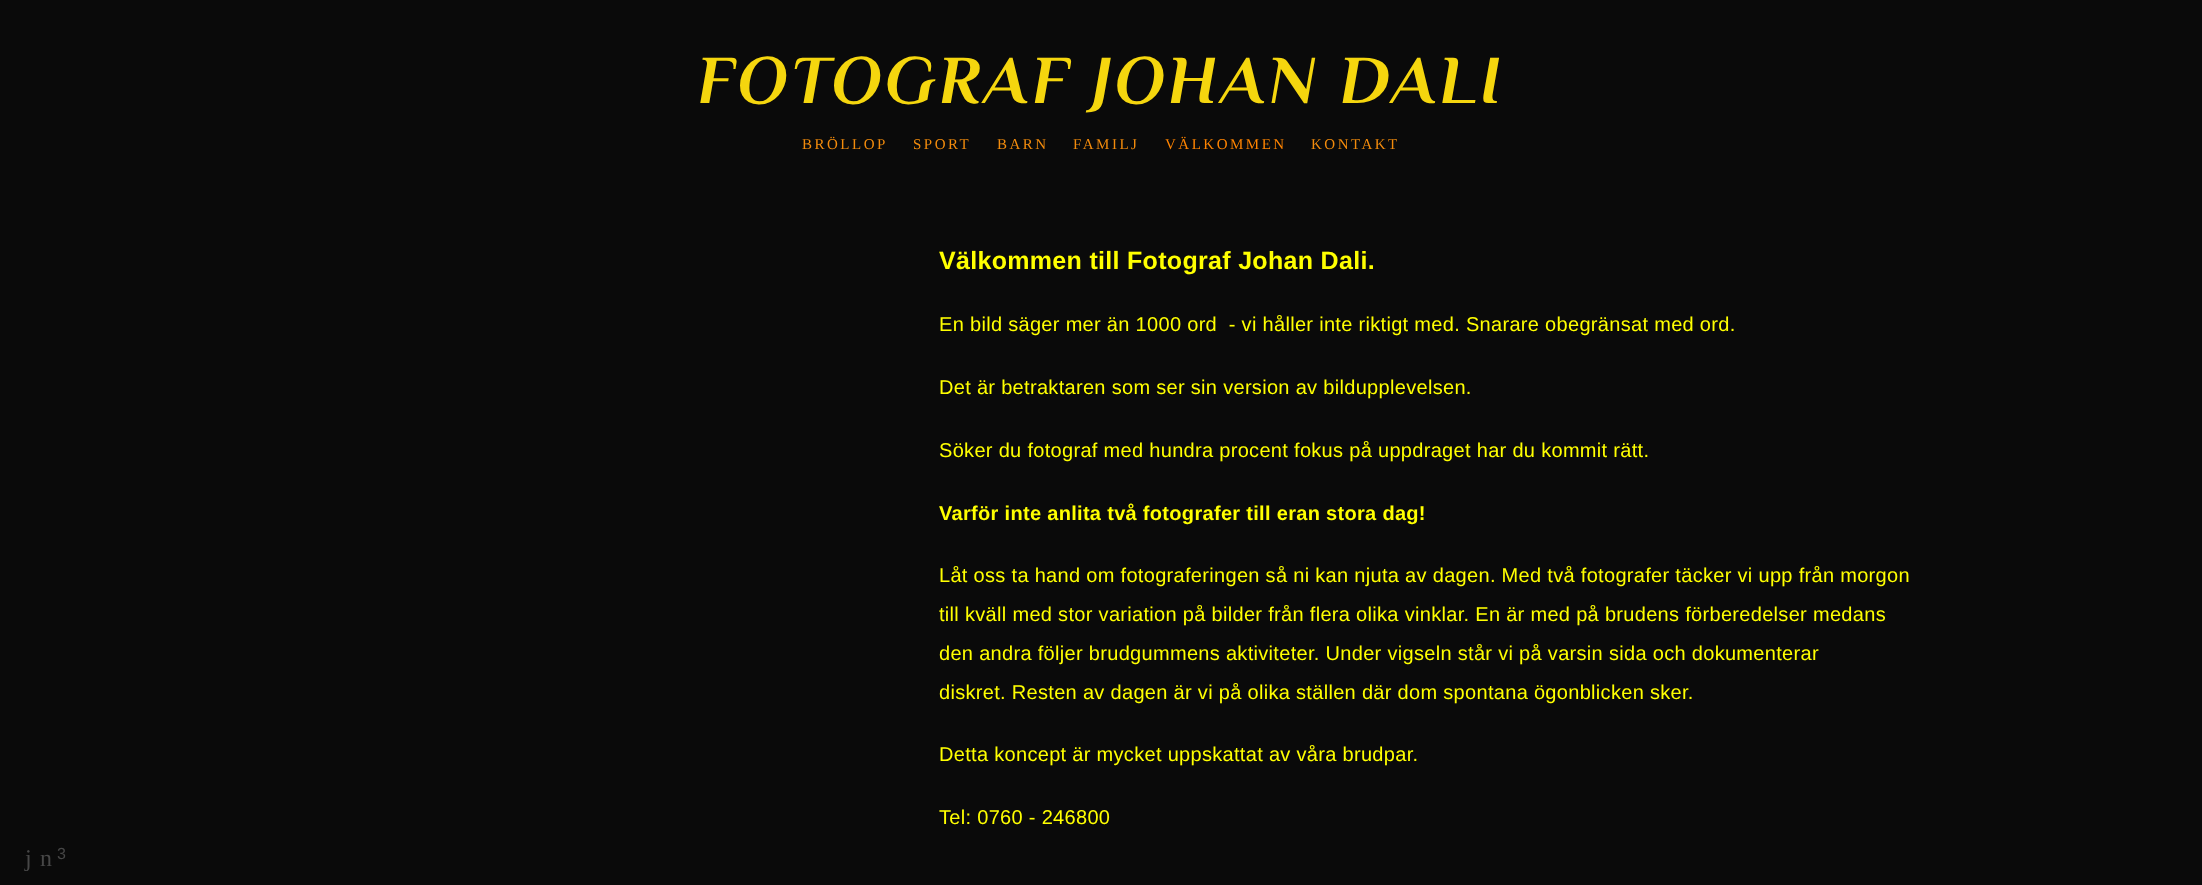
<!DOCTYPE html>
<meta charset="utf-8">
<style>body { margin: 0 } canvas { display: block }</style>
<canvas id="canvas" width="2202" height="885"></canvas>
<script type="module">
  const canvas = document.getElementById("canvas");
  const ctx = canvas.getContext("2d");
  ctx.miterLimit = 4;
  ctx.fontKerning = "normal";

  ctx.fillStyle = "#0a0a0a";
  ctx.fillRect(0, 0, 2202, 885);
  ctx.letterSpacing = "3.1px";
  ctx.font = "italic bold 68.75px Philosopher";
  ctx.fillStyle = "#f5d60e";
  ctx.fillText("FOTOGRAF JOHAN DALI", 697, 103);
  ctx.letterSpacing = "2.5px";
  ctx.font = "15px Liberation Serif";
  ctx.fillStyle = "#f28b0c";
  ctx.fillText("BRÖLLOP", 802, 149);
  ctx.fillText("SPORT", 913, 149);
  ctx.fillText("BARN", 997, 149);
  ctx.fillText("FAMILJ", 1073, 149);
  ctx.fillStyle = "#ff8400";
  ctx.fillText("VÄLKOMMEN", 1165, 149);
  ctx.fillStyle = "#f28b0c";
  ctx.fillText("KONTAKT", 1311, 149);
  ctx.letterSpacing = "0.31px";
  ctx.font = "bold 25px Liberation Sans";
  ctx.fillStyle = "#ffff00";
  ctx.fillText("Välkommen till Fotograf Johan Dali.", 939, 269);
  ctx.font = "20px Liberation Sans";
  ctx.fillText("En bild säger mer än 1000 ord  - vi håller inte riktigt med. Snarare obegränsat med ord.", 939, 331);
  ctx.fillText("Det är betraktaren som ser sin version av bildupplevelsen.", 939, 394);
  ctx.fillText("Söker du fotograf med hundra procent fokus på uppdraget har du kommit rätt.", 939, 457);
  ctx.font = "bold 20px Liberation Sans";
  ctx.fillText("Varför inte anlita två fotografer till eran stora dag!", 939, 520);
  ctx.font = "20px Liberation Sans";
  ctx.fillText("Låt oss ta hand om fotograferingen så ni kan njuta av dagen. Med två fotografer täcker vi upp från morgon", 939, 582);
  ctx.fillText("till kväll med stor variation på bilder från flera olika vinklar. En är med på brudens förberedelser medans", 939, 621);
  ctx.fillText("den andra följer brudgummens aktiviteter. Under vigseln står vi på varsin sida och dokumenterar", 939, 660);
  ctx.fillText("diskret. Resten av dagen är vi på olika ställen där dom spontana ögonblicken sker.", 939, 699);
  ctx.fillText("Detta koncept är mycket uppskattat av våra brudpar.", 939, 761);
  ctx.fillText("Tel: 0760 - 246800", 939, 824);
  ctx.letterSpacing = "0px";
  ctx.font = "24px Liberation Serif";
  ctx.fillStyle = "#474747";
  ctx.fillText("j", 25, 866);
  ctx.fillText("n", 40, 866);
  ctx.font = "16px Liberation Sans";
  ctx.fillText("3", 57, 859);
</script>
